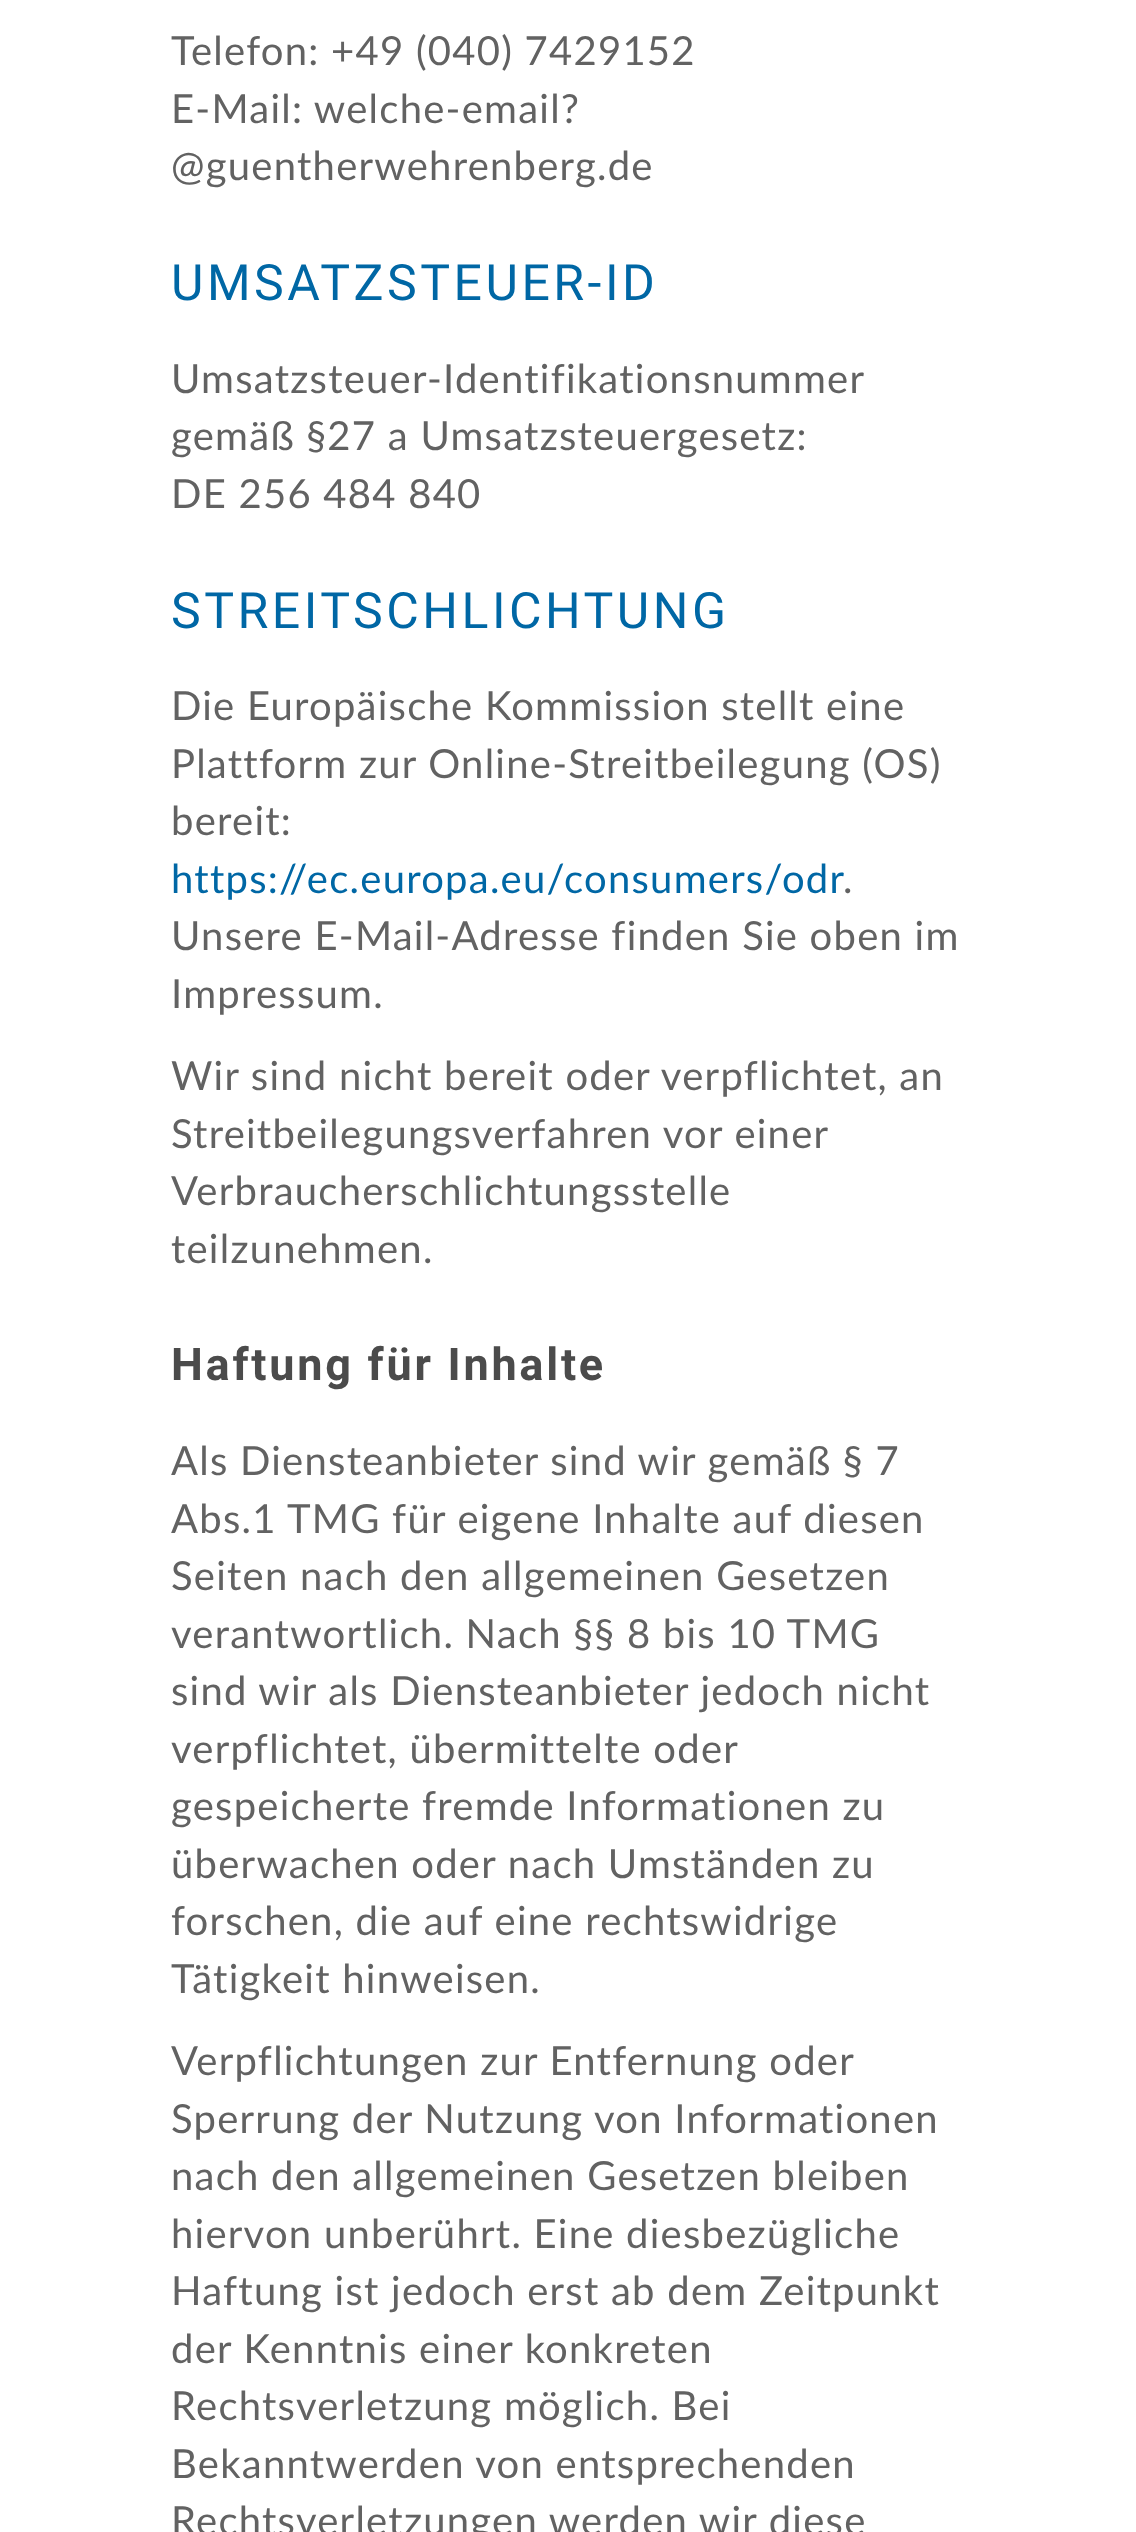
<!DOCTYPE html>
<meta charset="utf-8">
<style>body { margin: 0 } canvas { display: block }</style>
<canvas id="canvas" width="1136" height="2532"></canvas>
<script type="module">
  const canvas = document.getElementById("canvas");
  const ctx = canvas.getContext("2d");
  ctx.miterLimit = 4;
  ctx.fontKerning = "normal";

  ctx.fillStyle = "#ffffff";
  ctx.fillRect(0, 0, 1136, 2532);
  ctx.letterSpacing = "1.25px";
  ctx.font = "40px Lato";
  ctx.fillStyle = "#626262";
  ctx.fillText("Telefon: +49 (040) 7429152", 171, 65);
  ctx.fillText("E-Mail: welche-email?", 171, 123);
  ctx.fillText("@guentherwehrenberg.de", 171, 180);
  ctx.letterSpacing = "3.5px";
  ctx.font = "50px Roboto";
  ctx.fillStyle = "#0067a5";
  ctx.fillText("UMSATZSTEUER-ID", 171, 300);
  ctx.letterSpacing = "1.25px";
  ctx.font = "40px Lato";
  ctx.fillStyle = "#626262";
  ctx.fillText("Umsatzsteuer-Identifikationsnummer", 171, 393);
  ctx.fillText("gemäß §27 a Umsatzsteuergesetz:", 171, 450);
  ctx.fillText("DE 256 484 840", 171, 508);
  ctx.letterSpacing = "3.5px";
  ctx.font = "50px Roboto";
  ctx.fillStyle = "#0067a5";
  ctx.fillText("STREITSCHLICHTUNG", 171, 628);
  ctx.letterSpacing = "1.25px";
  ctx.font = "40px Lato";
  ctx.fillStyle = "#626262";
  ctx.fillText("Die Europäische Kommission stellt eine", 171, 720);
  ctx.fillText("Plattform zur Online-Streitbeilegung (OS)", 171, 778);
  ctx.fillText("bereit:", 171, 835);
  ctx.fillStyle = "#0067a5";
  ctx.fillText("https://ec.europa.eu/consumers/odr", 171, 893);
  ctx.fillStyle = "#626262";
  ctx.fillText(".", 843, 893);
  ctx.fillText("Unsere E-Mail-Adresse finden Sie oben im", 171, 950);
  ctx.fillText("Impressum.", 171, 1008);
  ctx.fillText("Wir sind nicht bereit oder verpflichtet, an", 171, 1090);
  ctx.fillText("Streitbeilegungsverfahren vor einer", 171, 1148);
  ctx.fillText("Verbraucherschlichtungsstelle", 171, 1205);
  ctx.fillText("teilzunehmen.", 171, 1263);
  ctx.letterSpacing = "2.75px";
  ctx.font = "bold 45px Roboto";
  ctx.fillStyle = "#4b4b4b";
  ctx.fillText("Haftung für Inhalte", 171, 1380);
  ctx.letterSpacing = "1.25px";
  ctx.font = "40px Lato";
  ctx.fillStyle = "#626262";
  ctx.fillText("Als Diensteanbieter sind wir gemäß § 7", 171, 1475);
  ctx.fillText("Abs.1 TMG für eigene Inhalte auf diesen", 171, 1533);
  ctx.fillText("Seiten nach den allgemeinen Gesetzen", 171, 1590);
  ctx.fillText("verantwortlich. Nach §§ 8 bis 10 TMG", 171, 1648);
  ctx.fillText("sind wir als Diensteanbieter jedoch nicht", 171, 1705);
  ctx.fillText("verpflichtet, übermittelte oder", 171, 1763);
  ctx.fillText("gespeicherte fremde Informationen zu", 171, 1820);
  ctx.fillText("überwachen oder nach Umständen zu", 171, 1878);
  ctx.fillText("forschen, die auf eine rechtswidrige", 171, 1935);
  ctx.fillText("Tätigkeit hinweisen.", 171, 1993);
  ctx.fillText("Verpflichtungen zur Entfernung oder", 171, 2075);
  ctx.fillText("Sperrung der Nutzung von Informationen", 171, 2133);
  ctx.fillText("nach den allgemeinen Gesetzen bleiben", 171, 2190);
  ctx.fillText("hiervon unberührt. Eine diesbezügliche", 171, 2248);
  ctx.fillText("Haftung ist jedoch erst ab dem Zeitpunkt", 171, 2305);
  ctx.fillText("der Kenntnis einer konkreten", 171, 2363);
  ctx.fillText("Rechtsverletzung möglich. Bei", 171, 2420);
  ctx.fillText("Bekanntwerden von entsprechenden", 171, 2478);
  ctx.fillText("Rechtsverletzungen werden wir diese", 171, 2535);
</script>
